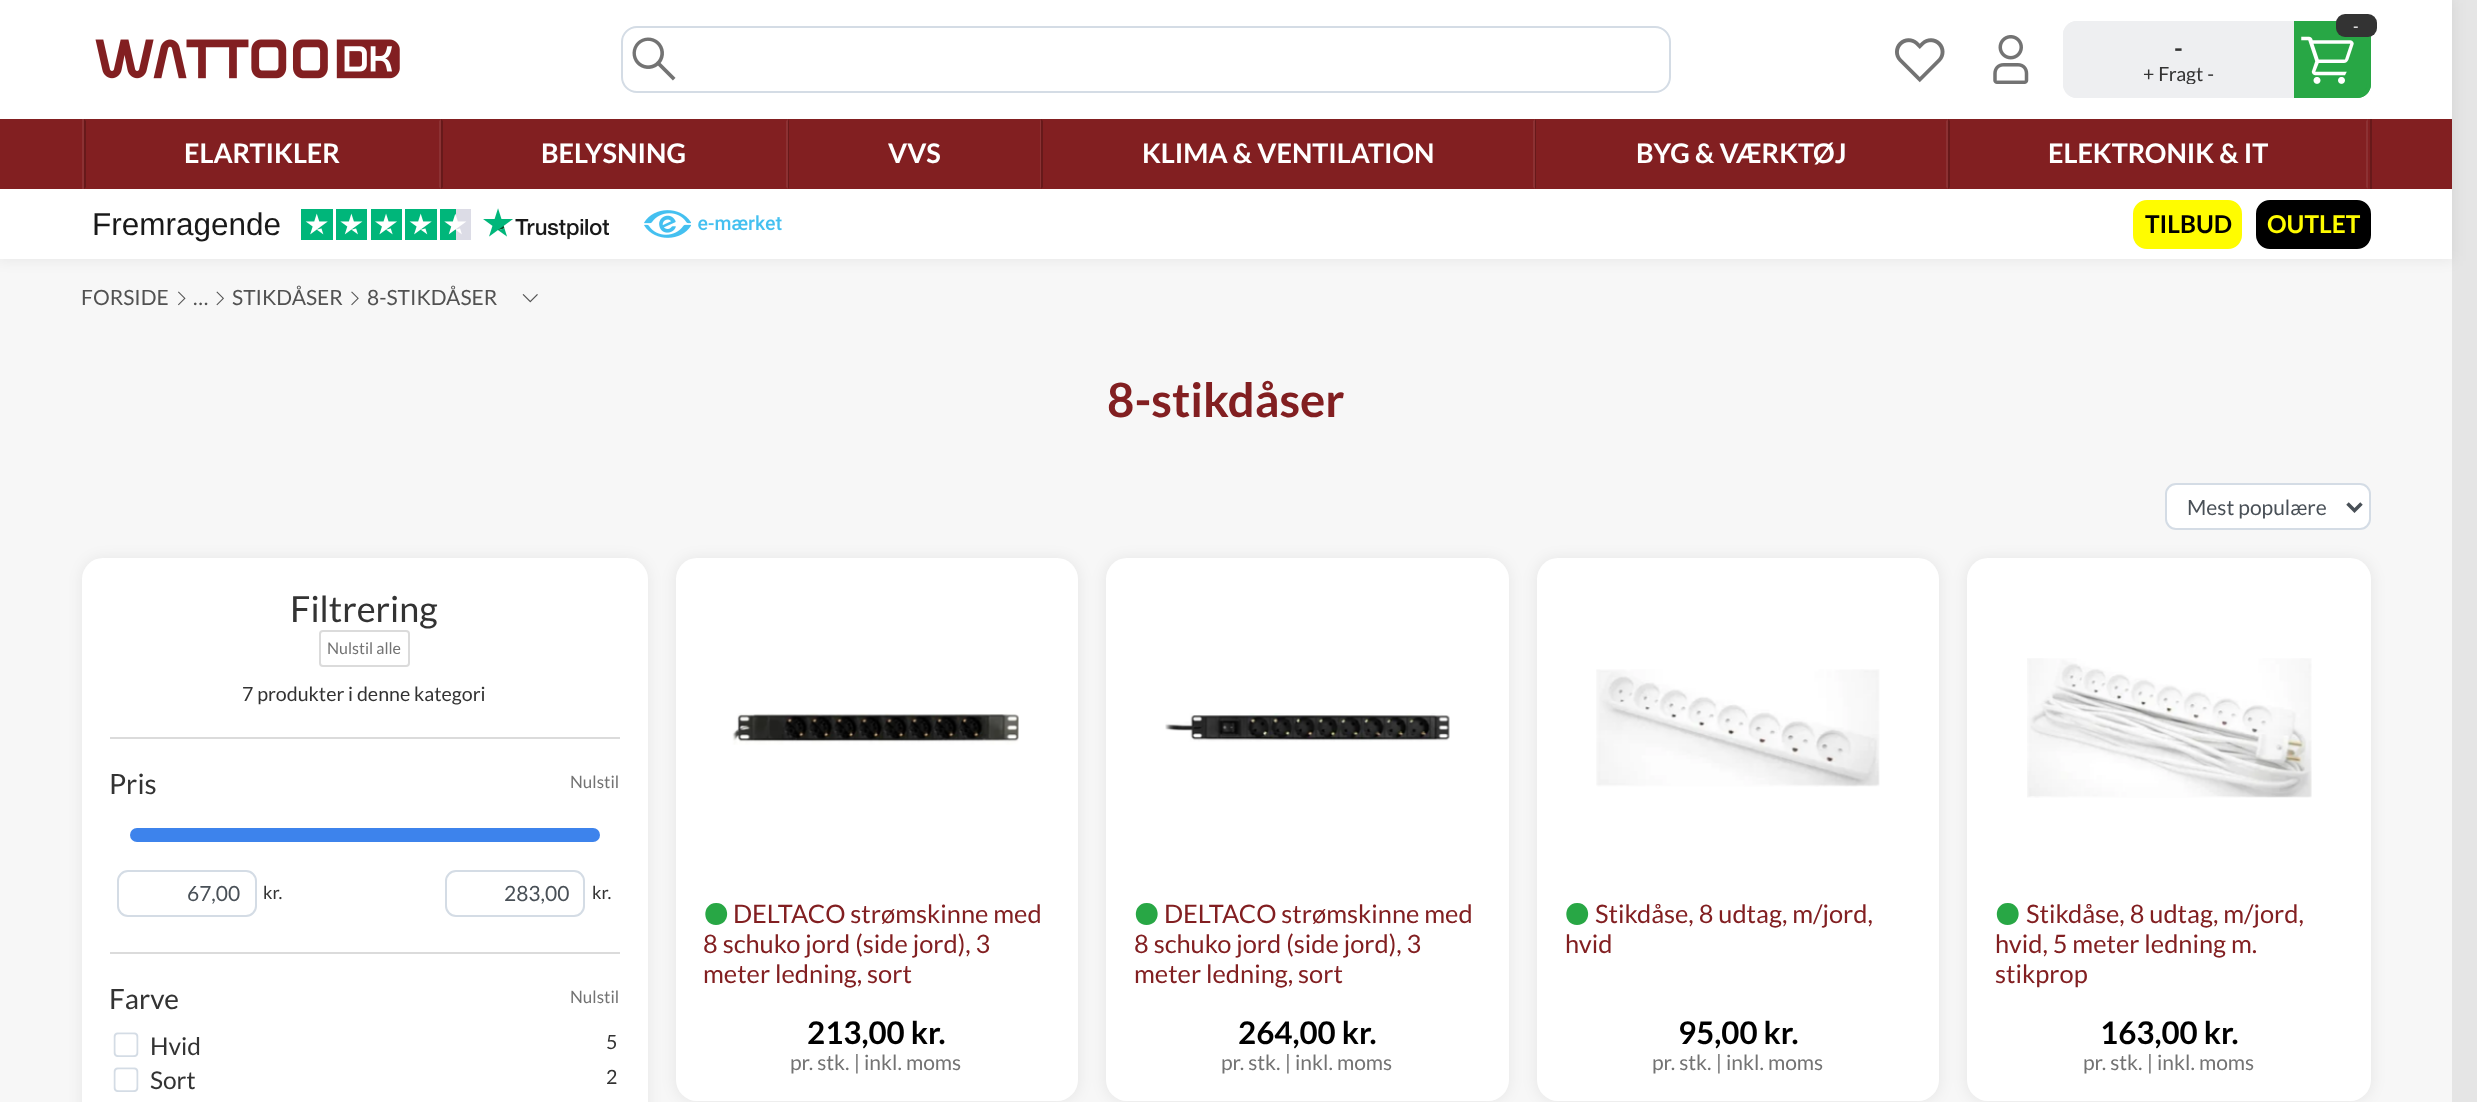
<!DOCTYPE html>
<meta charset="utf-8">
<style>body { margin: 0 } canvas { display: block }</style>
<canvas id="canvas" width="2477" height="1102"></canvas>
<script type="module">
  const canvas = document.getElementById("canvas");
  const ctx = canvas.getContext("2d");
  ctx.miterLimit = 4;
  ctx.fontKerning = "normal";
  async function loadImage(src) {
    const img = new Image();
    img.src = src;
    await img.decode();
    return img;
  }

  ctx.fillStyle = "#e5e5e5";
  ctx.fillRect(0, 0, 2477, 1102);
  ctx.fillStyle = "#f7f7f7";
  ctx.fillRect(0, 259, 2452, 843);
  ctx.fillStyle = "rgba(0, 0, 0, 0.06)";
  ctx.filter = "blur(7px)";
  ctx.beginPath();
  ctx.rect(-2, -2, 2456, 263);
  ctx.fill();
  ctx.filter = "none";
  ctx.fillStyle = "#ffffff";
  ctx.fillRect(0, 0, 2452, 259);
  ctx.drawImage(await loadImage("img1.png"), 95, 39, 305, 40);
  ctx.beginPath();
  ctx.roundRect(622, 27, 1048, 65, 15);
  ctx.strokeStyle = "#d4dce5";
  ctx.lineWidth = 2;
  ctx.stroke();
  ctx.drawImage(await loadImage("img2.png"), 632, 37, 44, 44);
  ctx.drawImage(await loadImage("img3.png"), 1895, 38, 50, 45);
  ctx.drawImage(await loadImage("img4.png"), 1993, 35, 36, 49);
  ctx.fillStyle = "#28a745";
  ctx.beginPath();
  ctx.roundRect(2294, 21, 77, 77, [0, 14, 14, 0]);
  ctx.fill();
  ctx.save();
  ctx.beginPath();
  ctx.rect(2294, 4, 95, 94);
  ctx.clip();
  ctx.beginPath();
  ctx.roundRect(2065, 23, 304, 73, 12);
  ctx.strokeStyle = "#28a745";
  ctx.lineWidth = 4;
  ctx.stroke();
  ctx.restore();
  ctx.drawImage(await loadImage("img5.png"), 2301, 36, 53, 48);
  ctx.fillStyle = "#333333";
  ctx.beginPath();
  ctx.roundRect(2336, 14, 41, 23, 9);
  ctx.fill();
  ctx.font = "16px Lato";
  ctx.fillStyle = "#ffffff";
  ctx.fillText("-", 2353, 32);
  ctx.fillStyle = "#eeeff1";
  ctx.beginPath();
  ctx.roundRect(2063, 21, 231, 77, [14, 0, 0, 14]);
  ctx.fill();
  ctx.save();
  ctx.beginPath();
  ctx.rect(2063, 21, 231, 77);
  ctx.clip();
  ctx.beginPath();
  ctx.roundRect(2065, 23, 304, 73, 12);
  ctx.strokeStyle = "#eeeff1";
  ctx.lineWidth = 4;
  ctx.stroke();
  ctx.restore();
  ctx.font = "bold 24.5px Lato";
  ctx.fillStyle = "#333333";
  ctx.fillText("-", 2174, 57);
  ctx.save();
  ctx.beginPath();
  ctx.rect(2077, 63, 205, 21);
  ctx.clip();
  ctx.font = "19.6px Lato";
  ctx.fillText("+ Fragt -", 2143, 81);
  ctx.restore();
  ctx.fillStyle = "#821f21";
  ctx.fillRect(0, 119, 2452, 70);
  ctx.fillStyle = "#67191a";
  ctx.fillRect(2370, 119, 2, 70);
  ctx.fillStyle = "#8c3133";
  ctx.fillRect(82, 119, 2, 70);
  ctx.beginPath();
  ctx.moveTo(441, 119);
  ctx.lineTo(441, 189);
  ctx.lineTo(439, 187);
  ctx.lineTo(439, 121);
  ctx.closePath();
  ctx.fill();
  ctx.fillStyle = "#67191a";
  ctx.beginPath();
  ctx.moveTo(84, 189);
  ctx.lineTo(84, 119);
  ctx.lineTo(86, 121);
  ctx.lineTo(86, 187);
  ctx.closePath();
  ctx.fill();
  ctx.font = "bold 27px Lato";
  ctx.fillStyle = "#ffffff";
  ctx.fillText("ELARTIKLER", 184, 163);
  ctx.fillStyle = "#8c3133";
  ctx.beginPath();
  ctx.moveTo(788, 119);
  ctx.lineTo(788, 189);
  ctx.lineTo(786, 187);
  ctx.lineTo(786, 121);
  ctx.closePath();
  ctx.fill();
  ctx.fillStyle = "#67191a";
  ctx.beginPath();
  ctx.moveTo(441, 189);
  ctx.lineTo(441, 119);
  ctx.lineTo(443, 121);
  ctx.lineTo(443, 187);
  ctx.closePath();
  ctx.fill();
  ctx.fillStyle = "#ffffff";
  ctx.fillText("BELYSNING", 541, 163);
  ctx.fillStyle = "#8c3133";
  ctx.beginPath();
  ctx.moveTo(1041, 119);
  ctx.lineTo(1041, 189);
  ctx.lineTo(1040, 187);
  ctx.lineTo(1040, 121);
  ctx.closePath();
  ctx.fill();
  ctx.fillStyle = "#67191a";
  ctx.beginPath();
  ctx.moveTo(788, 189);
  ctx.lineTo(788, 119);
  ctx.lineTo(789, 121);
  ctx.lineTo(789, 187);
  ctx.closePath();
  ctx.fill();
  ctx.fillStyle = "#ffffff";
  ctx.fillText("VVS", 888, 163);
  ctx.fillStyle = "#8c3133";
  ctx.beginPath();
  ctx.moveTo(1535, 119);
  ctx.lineTo(1535, 189);
  ctx.lineTo(1533, 187);
  ctx.lineTo(1533, 121);
  ctx.closePath();
  ctx.fill();
  ctx.fillStyle = "#67191a";
  ctx.beginPath();
  ctx.moveTo(1041, 189);
  ctx.lineTo(1041, 119);
  ctx.lineTo(1043, 121);
  ctx.lineTo(1043, 187);
  ctx.closePath();
  ctx.fill();
  ctx.fillStyle = "#ffffff";
  ctx.fillText("KLIMA & VENTILATION", 1142, 163);
  ctx.fillStyle = "#8c3133";
  ctx.beginPath();
  ctx.moveTo(1948, 119);
  ctx.lineTo(1948, 189);
  ctx.lineTo(1946, 187);
  ctx.lineTo(1946, 121);
  ctx.closePath();
  ctx.fill();
  ctx.fillStyle = "#67191a";
  ctx.beginPath();
  ctx.moveTo(1535, 189);
  ctx.lineTo(1535, 119);
  ctx.lineTo(1536, 121);
  ctx.lineTo(1536, 187);
  ctx.closePath();
  ctx.fill();
  ctx.fillStyle = "#ffffff";
  ctx.fillText("BYG & VÆRKTØJ", 1636, 163);
  ctx.fillStyle = "#8c3133";
  ctx.beginPath();
  ctx.moveTo(2368, 119);
  ctx.lineTo(2368, 189);
  ctx.lineTo(2366, 187);
  ctx.lineTo(2366, 121);
  ctx.closePath();
  ctx.fill();
  ctx.fillStyle = "#67191a";
  ctx.beginPath();
  ctx.moveTo(1948, 189);
  ctx.lineTo(1948, 119);
  ctx.lineTo(1950, 121);
  ctx.lineTo(1950, 187);
  ctx.closePath();
  ctx.fill();
  ctx.fillStyle = "#ffffff";
  ctx.fillText("ELEKTRONIK & IT", 2048, 163);
  ctx.font = "31.5px Liberation Sans";
  ctx.fillStyle = "#191919";
  ctx.fillText("Fremragende", 92, 235);
  ctx.drawImage(await loadImage("img6.png"), 301, 209, 170, 31);
  ctx.drawImage(await loadImage("img7.png"), 483, 208, 126, 32);
  ctx.drawImage(await loadImage("img8.png"), 644, 210, 47, 28);
  ctx.drawImage(await loadImage("img9.png"), 698, 215, 84, 16);
  ctx.fillStyle = "#fffc00";
  ctx.beginPath();
  ctx.roundRect(2135, 202, 105, 45, 12);
  ctx.fill();
  ctx.strokeStyle = "#fffc00";
  ctx.lineWidth = 4;
  ctx.stroke();
  ctx.font = "bold 24.5px Lato";
  ctx.fillStyle = "#000000";
  ctx.fillText("TILBUD", 2145, 233);
  ctx.beginPath();
  ctx.roundRect(2258, 202, 111, 45, 12);
  ctx.fill();
  ctx.strokeStyle = "#000000";
  ctx.stroke();
  ctx.fillStyle = "#fffc00";
  ctx.fillText("OUTLET", 2267, 233);
  ctx.font = "21px Lato";
  ctx.fillStyle = "#525252";
  ctx.fillText("FORSIDE", 81, 305);
  ctx.drawImage(await loadImage("img10.png"), 178, 291, 8, 15);
  ctx.fillText("…", 193, 305);
  ctx.drawImage(await loadImage("img11.png"), 216, 291, 8, 15);
  ctx.fillText("STIKDÅSER", 232, 305);
  ctx.drawImage(await loadImage("img12.png"), 351, 291, 8, 15);
  ctx.fillText("8-STIKDÅSER", 367, 305);
  ctx.drawImage(await loadImage("img13.png"), 522, 294, 16, 9);
  ctx.font = "bold 47.25px Lato";
  ctx.fillStyle = "#821f21";
  ctx.fillText("8-stikdåser", 1107, 417);
  ctx.fillStyle = "#ffffff";
  ctx.beginPath();
  ctx.roundRect(2166, 484, 204, 45, 10);
  ctx.fill();
  ctx.strokeStyle = "#d4dce5";
  ctx.lineWidth = 2;
  ctx.stroke();
  ctx.beginPath();
  ctx.moveTo(2347.5, 503.5);
  ctx.lineTo(2354.5, 510.5);
  ctx.lineTo(2361.5, 503.5);
  ctx.strokeStyle = "#495057";
  ctx.lineWidth = 3.5;
  ctx.stroke();
  ctx.font = "21px Lato";
  ctx.fillStyle = "#495057";
  ctx.fillText("Mest populære", 2187, 515);
  ctx.fillStyle = "rgba(0, 0, 0, 0.06)";
  ctx.filter = "blur(7px)";
  ctx.beginPath();
  ctx.roundRect(81, 557, 568, 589, 23);
  ctx.fill();
  ctx.filter = "none";
  ctx.fillStyle = "#ffffff";
  ctx.beginPath();
  ctx.roundRect(82, 558, 566, 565, 21);
  ctx.fill();
  ctx.fillStyle = "#dbdbdb";
  ctx.fillRect(110, 737, 510, 2);
  ctx.font = "36px Lato";
  ctx.fillStyle = "#333333";
  ctx.fillText("Filtrering", 290, 622);
  ctx.beginPath();
  ctx.roundRect(320, 631, 89, 35, 3);
  ctx.strokeStyle = "#dbdbdb";
  ctx.lineWidth = 2;
  ctx.stroke();
  ctx.font = "16px Lato";
  ctx.fillStyle = "#737373";
  ctx.fillText("Nulstil alle", 327, 654);
  ctx.font = "19.6px Lato";
  ctx.fillStyle = "#333333";
  ctx.fillText("7 produkter i denne kategori", 242, 701);
  ctx.font = "28px Lato";
  ctx.fillText("Pris", 109, 794);
  ctx.font = "17px Lato";
  ctx.fillStyle = "#737373";
  ctx.fillText("Nulstil", 570, 788);
  ctx.fillStyle = "#3d83ec";
  ctx.beginPath();
  ctx.roundRect(130, 828, 470, 14, 7);
  ctx.fill();
  ctx.beginPath();
  ctx.roundRect(118, 871, 138, 45, 10);
  ctx.strokeStyle = "#d4dce5";
  ctx.stroke();
  ctx.font = "21px Lato";
  ctx.fillStyle = "#495057";
  ctx.fillText("67,00", 187, 901);
  ctx.font = "18px Lato";
  ctx.fillStyle = "#333333";
  ctx.fillText("kr.", 263, 899);
  ctx.beginPath();
  ctx.roundRect(446, 871, 138, 45, 10);
  ctx.stroke();
  ctx.font = "21px Lato";
  ctx.fillStyle = "#495057";
  ctx.fillText("283,00", 504, 901);
  ctx.font = "18px Lato";
  ctx.fillStyle = "#333333";
  ctx.fillText("kr.", 592, 899);
  ctx.fillStyle = "#dbdbdb";
  ctx.fillRect(110, 952, 510, 2);
  ctx.font = "28px Lato";
  ctx.fillStyle = "#333333";
  ctx.fillText("Farve", 109, 1009);
  ctx.font = "17px Lato";
  ctx.fillStyle = "#737373";
  ctx.fillText("Nulstil", 570, 1003);
  ctx.drawImage(await loadImage("img14.png"), 113, 1032, 26, 25);
  ctx.font = "24.5px Lato";
  ctx.fillStyle = "#333333";
  ctx.fillText("Hvid", 150, 1055);
  ctx.font = "19.6px Lato";
  ctx.fillText("5", 606, 1049);
  ctx.drawImage(await loadImage("img14.png"), 113, 1067, 26, 25);
  ctx.font = "24.5px Lato";
  ctx.fillText("Sort", 150, 1089);
  ctx.font = "19.6px Lato";
  ctx.fillText("2", 606, 1084);
  ctx.fillStyle = "rgba(0, 0, 0, 0.06)";
  ctx.filter = "blur(7px)";
  ctx.beginPath();
  ctx.roundRect(674, 557, 406, 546, 23);
  ctx.fill();
  ctx.filter = "none";
  ctx.fillStyle = "#ffffff";
  ctx.beginPath();
  ctx.roundRect(676, 558, 402, 543, 21);
  ctx.fill();
  ctx.drawImage(await loadImage("img15.png"), 732, 713, 287, 32);
  ctx.fillStyle = "#28a745";
  ctx.beginPath();
  ctx.moveTo(716.5, 903);
  ctx.bezierCurveTo(731, 903.5, 730.5, 925, 716, 925);
  ctx.bezierCurveTo(702, 925, 701.5, 903.5, 716, 903);
  ctx.closePath();
  ctx.fill();
  ctx.font = "25.4px Lato";
  ctx.fillStyle = "#821f21";
  ctx.fillText("DELTACO strømskinne med", 733, 923);
  ctx.fillText("8 schuko jord (side jord), 3", 703, 953);
  ctx.fillText("meter ledning, sort", 703, 983);
  ctx.font = "bold 31.25px Lato";
  ctx.fillStyle = "#000000";
  ctx.fillText("213,00 kr.", 807, 1044);
  ctx.font = "21px Lato";
  ctx.fillStyle = "#737373";
  ctx.fillText("pr. stk. | inkl. moms", 790, 1070);
  ctx.fillStyle = "rgba(0, 0, 0, 0.06)";
  ctx.filter = "blur(7px)";
  ctx.beginPath();
  ctx.roundRect(1104, 557, 406, 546, 23);
  ctx.fill();
  ctx.filter = "none";
  ctx.fillStyle = "#ffffff";
  ctx.beginPath();
  ctx.roundRect(1106, 558, 403, 543, 21);
  ctx.fill();
  ctx.drawImage(await loadImage("img16.png"), 1165, 713, 285, 29);
  ctx.fillStyle = "#28a745";
  ctx.beginPath();
  ctx.moveTo(1147, 903);
  ctx.bezierCurveTo(1161.5, 903.5, 1161, 925, 1146.5, 925);
  ctx.bezierCurveTo(1132.5, 925, 1132, 903.5, 1146.5, 903);
  ctx.closePath();
  ctx.fill();
  ctx.font = "25.4px Lato";
  ctx.fillStyle = "#821f21";
  ctx.fillText("DELTACO strømskinne med", 1164, 923);
  ctx.fillText("8 schuko jord (side jord), 3", 1134, 953);
  ctx.fillText("meter ledning, sort", 1134, 983);
  ctx.font = "bold 31.25px Lato";
  ctx.fillStyle = "#000000";
  ctx.fillText("264,00 kr.", 1238, 1044);
  ctx.font = "21px Lato";
  ctx.fillStyle = "#737373";
  ctx.fillText("pr. stk. | inkl. moms", 1221, 1070);
  ctx.fillStyle = "rgba(0, 0, 0, 0.06)";
  ctx.filter = "blur(7px)";
  ctx.beginPath();
  ctx.roundRect(1535, 557, 406, 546, 23);
  ctx.fill();
  ctx.filter = "none";
  ctx.fillStyle = "#ffffff";
  ctx.beginPath();
  ctx.roundRect(1537, 558, 402, 543, 21);
  ctx.fill();
  ctx.drawImage(await loadImage("img17.png"), 1596, 669, 284, 118);
  ctx.fillStyle = "#28a745";
  ctx.beginPath();
  ctx.moveTo(1577.5, 903);
  ctx.bezierCurveTo(1592, 903.5, 1591.5, 925, 1577, 925);
  ctx.bezierCurveTo(1563, 925, 1562.5, 903.5, 1577, 903);
  ctx.closePath();
  ctx.fill();
  ctx.font = "25.4px Lato";
  ctx.fillStyle = "#821f21";
  ctx.fillText("Stikdåse, 8 udtag, m/jord,", 1595, 923);
  ctx.fillText("hvid", 1565, 953);
  ctx.font = "bold 31.25px Lato";
  ctx.fillStyle = "#000000";
  ctx.fillText("95,00 kr.", 1678, 1044);
  ctx.font = "21px Lato";
  ctx.fillStyle = "#737373";
  ctx.fillText("pr. stk. | inkl. moms", 1652, 1070);
  ctx.fillStyle = "rgba(0, 0, 0, 0.06)";
  ctx.filter = "blur(7px)";
  ctx.beginPath();
  ctx.roundRect(1965, 557, 408, 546, 23);
  ctx.fill();
  ctx.filter = "none";
  ctx.fillStyle = "#ffffff";
  ctx.beginPath();
  ctx.roundRect(1967, 558, 404, 543, 21);
  ctx.fill();
  ctx.drawImage(await loadImage("img18.png"), 2027, 658, 285, 140);
  ctx.fillStyle = "#28a745";
  ctx.beginPath();
  ctx.moveTo(2008, 903);
  ctx.bezierCurveTo(2022.5, 903.5, 2022, 925, 2007.5, 925);
  ctx.bezierCurveTo(1993.5, 925, 1993, 903.5, 2007.5, 903);
  ctx.closePath();
  ctx.fill();
  ctx.font = "25.4px Lato";
  ctx.fillStyle = "#821f21";
  ctx.fillText("Stikdåse, 8 udtag, m/jord,", 2026, 923);
  ctx.fillText("hvid, 5 meter ledning m.", 1995, 953);
  ctx.fillText("stikprop", 1995, 983);
  ctx.font = "bold 31.25px Lato";
  ctx.fillStyle = "#000000";
  ctx.fillText("163,00 kr.", 2100, 1044);
  ctx.font = "21px Lato";
  ctx.fillStyle = "#737373";
  ctx.fillText("pr. stk. | inkl. moms", 2083, 1070);
</script>
